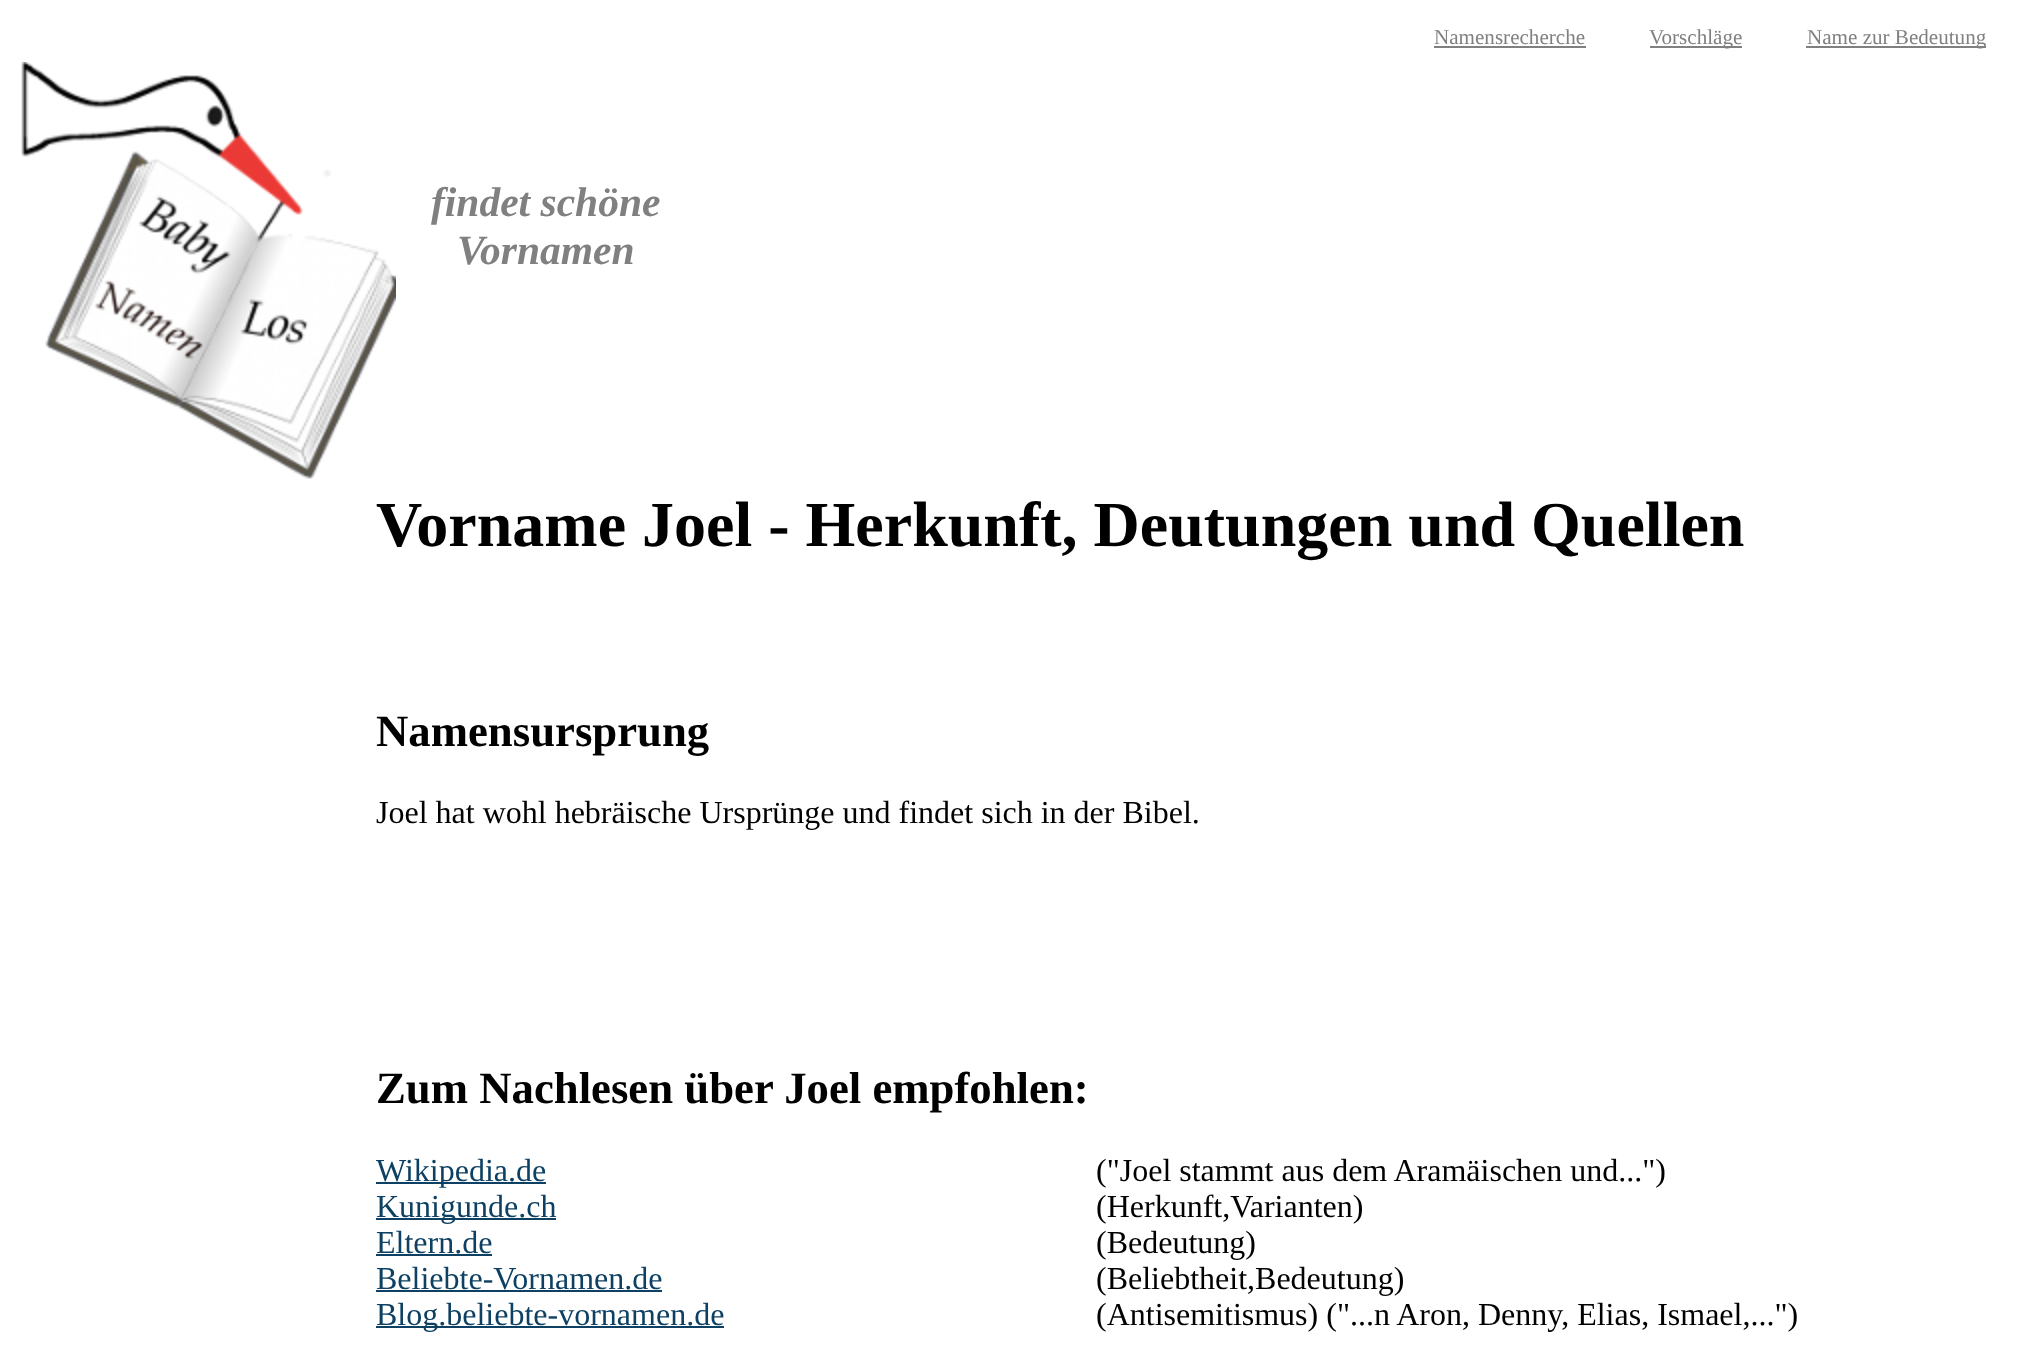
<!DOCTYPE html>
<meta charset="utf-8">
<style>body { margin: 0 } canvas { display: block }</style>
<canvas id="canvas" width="2033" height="1356"></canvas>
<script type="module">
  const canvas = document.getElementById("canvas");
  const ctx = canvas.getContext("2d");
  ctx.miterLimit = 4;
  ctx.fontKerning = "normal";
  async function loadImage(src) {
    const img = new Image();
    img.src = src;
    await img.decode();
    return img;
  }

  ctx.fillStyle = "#ffffff";
  ctx.fillRect(0, 0, 2033, 1356);
  ctx.font = "21.1px Liberation Serif";
  ctx.fillStyle = "#808080";
  ctx.fillText("Namensrecherche", 1434, 44);
  ctx.fillRect(1434, 46, 152, 2);
  ctx.fillRect(1650, 46, 92, 2);
  ctx.fillText("Vorschläge", 1649, 44);
  ctx.fillRect(1806, 46, 180, 2);
  ctx.fillText("Name zur Bedeutung", 1807, 44);
  ctx.drawImage(await loadImage("img1.png"), 21, 62, 375, 417);
  ctx.font = "italic bold 41.5px Liberation Serif";
  ctx.fillText("findet schöne", 431, 216);
  ctx.fillText("Vornamen", 457, 264);
  ctx.font = "bold 64px Liberation Serif";
  ctx.fillStyle = "#000000";
  ctx.fillText("Vorname Joel - Herkunft, Deutungen und Quellen", 376, 546);
  ctx.font = "bold 44.75px Liberation Serif";
  ctx.fillText("Namensursprung", 376, 746);
  ctx.font = "32px Liberation Serif";
  ctx.fillText("Joel hat wohl hebräische Ursprünge und findet sich in der Bibel.", 376, 823);
  ctx.font = "bold 44.75px Liberation Serif";
  ctx.fillText("Zum Nachlesen über Joel empfohlen:", 376, 1103);
  ctx.fillStyle = "#0d4062";
  ctx.fillRect(376, 1182, 170, 2);
  ctx.font = "32px Liberation Serif";
  ctx.fillText("Wikipedia.de", 376, 1181);
  ctx.fillStyle = "#000000";
  ctx.fillText("(\"Joel stammt aus dem Aramäischen und...\")", 1096, 1181);
  ctx.fillStyle = "#0d4062";
  ctx.fillRect(376, 1218, 180, 2);
  ctx.fillText("Kunigunde.ch", 376, 1217);
  ctx.fillStyle = "#000000";
  ctx.fillText("(Herkunft,Varianten)", 1096, 1217);
  ctx.fillStyle = "#0d4062";
  ctx.fillText("Eltern.de", 376, 1253);
  ctx.fillRect(376, 1254, 116, 2);
  ctx.fillStyle = "#000000";
  ctx.fillText("(Bedeutung)", 1096, 1253);
  ctx.fillStyle = "#0d4062";
  ctx.fillText("Beliebte-Vornamen.de", 376, 1289);
  ctx.fillRect(376, 1290, 286, 2);
  ctx.fillStyle = "#000000";
  ctx.fillText("(Beliebtheit,Bedeutung)", 1096, 1289);
  ctx.fillStyle = "#0d4062";
  ctx.fillRect(376, 1326, 348, 2);
  ctx.fillText("Blog.beliebte-vornamen.de", 376, 1325);
  ctx.fillStyle = "#000000";
  ctx.fillText("(Antisemitismus) (\"...n Aron, Denny, Elias, Ismael,...\")", 1096, 1325);
</script>
